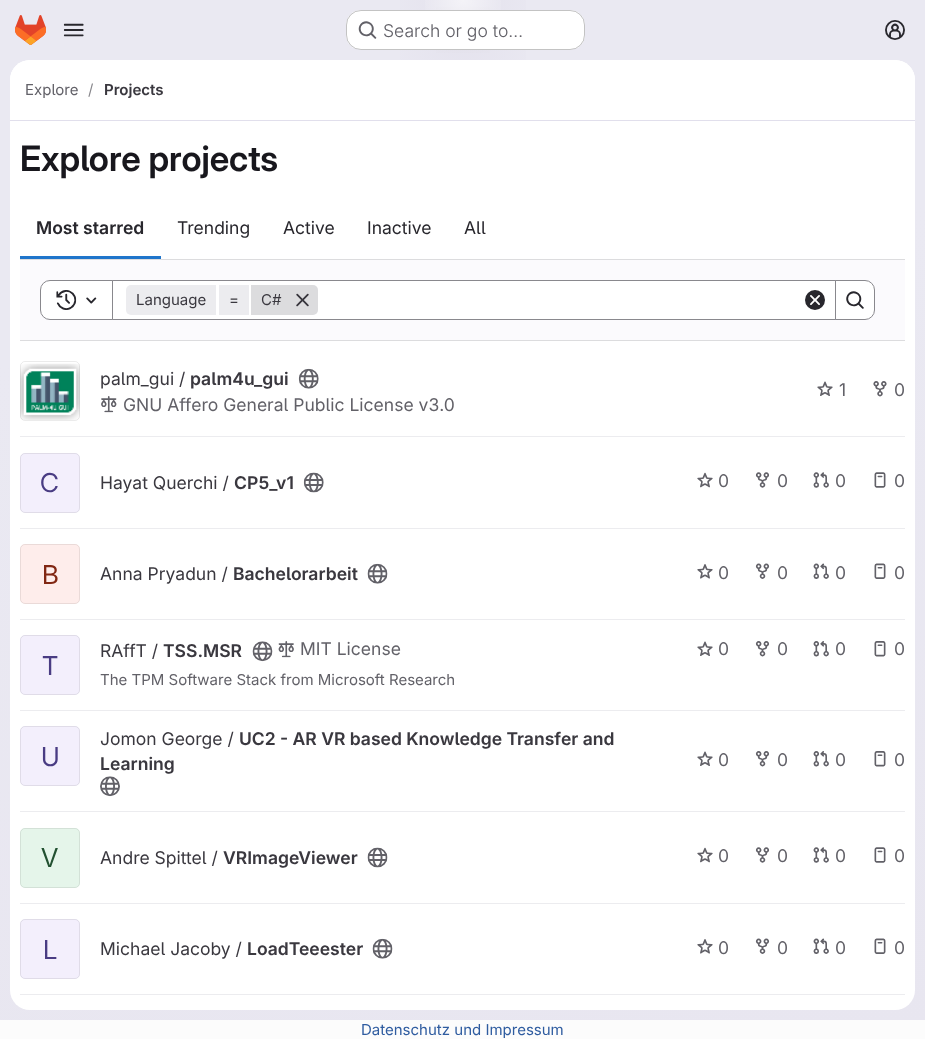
<!DOCTYPE html>
<meta charset="utf-8">
<style>body { margin: 0 } canvas { display: block }</style>
<canvas id="canvas" width="925" height="1039"></canvas>
<script type="module">
  const canvas = document.getElementById("canvas");
  const ctx = canvas.getContext("2d");
  ctx.miterLimit = 4;
  ctx.fontKerning = "normal";
  async function loadImage(src) {
    const img = new Image();
    img.src = src;
    await img.decode();
    return img;
  }
  let gradient;

  ctx.fillStyle = "#ffffff";
  ctx.fillRect(0, 0, 925, 1039);
  gradient = ctx.createLinearGradient(565, 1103, 360, -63);
  gradient.addColorStop(0, "#e8e6f0");
  gradient.addColorStop(0.7, "#eae9f2");
  ctx.fillStyle = gradient;
  ctx.fillRect(0, 0, 925, 1020);
  gradient = ctx.createRadialGradient(463, 0, 0, 463, 0, 463);
  gradient.addColorStop(0, "#e4e2ed");
  gradient.addColorStop(0.19, "rgba(228, 226, 237, 0)");
  ctx.fillStyle = gradient;
  ctx.beginPath();
  ctx.rect(400, 0, 126, 60);
  ctx.save();
  ctx.clip();
  ctx.scale(1, 1040 / 463);
  ctx.fillRect(0, 0, 925, 463);
  ctx.restore();
  gradient = ctx.createRadialGradient(463, 0, 0, 463, 0, 463);
  gradient.addColorStop(0, "#e4e2ec");
  gradient.addColorStop(0.14, "rgba(228, 226, 236, 0)");
  ctx.fillStyle = gradient;
  ctx.beginPath();
  ctx.rect(436, 7, 54, 46);
  ctx.save();
  ctx.clip();
  ctx.scale(1, 1040 / 463);
  ctx.fillRect(0, 0, 925, 463);
  ctx.restore();
  gradient = ctx.createRadialGradient(463, 0, 0, 463, 0, 1138);
  gradient.addColorStop(0, "rgba(255, 255, 255, 0.6)");
  gradient.addColorStop(0.04, "rgba(255, 255, 255, 0)");
  ctx.fillStyle = gradient;
  ctx.fillRect(425, 0, 76, 10);
  ctx.drawImage(await loadImage("img1.png"), 15, 15, 31, 30);
  ctx.drawImage(await loadImage("img2.png"), 63, 23, 21, 14);
  ctx.fillStyle = "#ffffff";
  ctx.beginPath();
  ctx.roundRect(346, 10, 239, 40, 15);
  ctx.fill();
  ctx.beginPath();
  ctx.roundRect(346.5, 10.5, 238, 39, 14.5);
  ctx.strokeStyle = "rgba(5, 5, 6, 0.24)";
  ctx.stroke();
  ctx.drawImage(await loadImage("img3.png"), 358, 21, 19, 18);
  ctx.font = "300 17.5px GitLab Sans";
  ctx.fillStyle = "#626168";
  ctx.fillText("Search or go to…", 383, 37);
  ctx.drawImage(await loadImage("img4.png"), 885, 20, 20, 20);
  ctx.fillStyle = "#ffffff";
  ctx.beginPath();
  ctx.roundRect(10, 60, 905, 950, 20);
  ctx.fill();
  ctx.beginPath();
  ctx.roundRect(10, 60, 905, 61, [20, 20, 0, 0]);
  ctx.fill();
  ctx.fillStyle = "#e1dfec";
  ctx.fillRect(10, 120, 905, 1);
  ctx.font = "15px GitLab Sans";
  ctx.fillStyle = "#626168";
  ctx.fillText("Explore", 25, 95);
  ctx.fillStyle = "#89888d";
  ctx.fillText("/", 88, 95);
  ctx.font = "600 15px 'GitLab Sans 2'";
  ctx.fillStyle = "#3a383f";
  ctx.fillText("Projects", 104, 95);
  ctx.font = "600 35px GitLab Sans";
  ctx.fillStyle = "#18171d";
  ctx.fillText("Explore projects", 20, 171);
  ctx.font = "600 17.5px 'GitLab Sans 2'";
  ctx.fillStyle = "#28272d";
  ctx.fillText("Most starred", 36, 234);
  ctx.fillStyle = "#1f75cb";
  ctx.fillRect(20, 256, 141, 3);
  ctx.font = "17.5px GitLab Sans";
  ctx.fillStyle = "#28272d";
  ctx.fillText("Trending", 177, 234);
  ctx.fillText("Active", 283, 234);
  ctx.fillText("Inactive", 367, 234);
  ctx.fillText("All", 464, 234);
  ctx.fillStyle = "#fbfafd";
  ctx.fillRect(20, 260, 885, 80);
  ctx.fillStyle = "#dcdcde";
  ctx.fillRect(20, 259, 885, 1);
  ctx.fillRect(20, 340, 885, 1);
  ctx.fillStyle = "#ffffff";
  ctx.fillRect(113, 281, 722, 38);
  ctx.strokeStyle = "#89888d";
  ctx.strokeRect(111.5, 280.5, 724, 39);
  ctx.beginPath();
  ctx.roundRect(40.5, 280.5, 72, 39, [9.5, 0, 0, 9.5]);
  ctx.fill();
  ctx.stroke();
  ctx.drawImage(await loadImage("img5.png"), 56, 290, 21, 20);
  ctx.drawImage(await loadImage("img6.png"), 86, 297, 11, 7);
  ctx.fillStyle = "#ececef";
  ctx.beginPath();
  ctx.roundRect(126, 285, 90, 30, [5, 0, 0, 5]);
  ctx.fill();
  ctx.font = "15px GitLab Sans";
  ctx.fillStyle = "#3a383f";
  ctx.fillText("Language", 136, 305);
  ctx.fillStyle = "#ececef";
  ctx.fillRect(219, 285, 30, 30);
  ctx.fillStyle = "#3a383f";
  ctx.fillText("=", 229, 305);
  ctx.fillStyle = "#dcdcde";
  ctx.beginPath();
  ctx.roundRect(251, 285, 67, 30, [0, 5, 5, 0]);
  ctx.fill();
  ctx.fillStyle = "#3a383f";
  ctx.fillText("C#", 261, 305);
  ctx.drawImage(await loadImage("img7.png"), 296, 293, 13, 14);
  ctx.drawImage(await loadImage("img8.png"), 805, 290, 20, 20);
  ctx.fillStyle = "#ffffff";
  ctx.beginPath();
  ctx.roundRect(835.5, 280.5, 39, 39, [0, 9.5, 9.5, 0]);
  ctx.fill();
  ctx.stroke();
  ctx.drawImage(await loadImage("img9.png"), 846, 291, 18, 18);
  ctx.fillStyle = "#ececef";
  ctx.fillRect(20, 436, 885, 1);
  ctx.drawImage(await loadImage("img10.png"), 20, 363, 60, 57);
  ctx.beginPath();
  ctx.roundRect(20.5, 361.5, 59, 59, 4.5);
  ctx.strokeStyle = "rgba(5, 5, 6, 0.08)";
  ctx.stroke();
  ctx.font = "17.5px GitLab Sans";
  ctx.fillStyle = "#3a383f";
  ctx.fillText("palm_gui /", 100, 385);
  ctx.font = "600 17.5px 'GitLab Sans 2'";
  ctx.fillText("palm4u_gui", 190, 385);
  ctx.drawImage(await loadImage("img11.png"), 298, 368, 21, 21);
  ctx.drawImage(await loadImage("img12.png"), 101, 396, 16, 17);
  ctx.font = "17.5px GitLab Sans";
  ctx.fillStyle = "#626168";
  ctx.fillText("GNU Affero General Public License v3.0", 123, 411);
  ctx.drawImage(await loadImage("img13.png"), 817, 381, 16, 15);
  ctx.fillText("1", 839, 396);
  ctx.drawImage(await loadImage("img14.png"), 873, 381, 14, 16);
  ctx.fillText("0", 894, 396);
  ctx.fillStyle = "#ececef";
  ctx.fillRect(20, 528, 885, 1);
  ctx.fillStyle = "#f3effc";
  ctx.beginPath();
  ctx.roundRect(20, 453, 60, 60, 5);
  ctx.fill();
  ctx.beginPath();
  ctx.roundRect(20.5, 453.5, 59, 59, 4.5);
  ctx.stroke();
  ctx.font = "26px 'GitLab Sans 2'";
  ctx.fillStyle = "#493c83";
  ctx.fillText("C", 40, 492);
  ctx.font = "17.5px GitLab Sans";
  ctx.fillStyle = "#3a383f";
  ctx.fillText("Hayat Querchi /", 100, 489);
  ctx.font = "600 17.5px 'GitLab Sans 2'";
  ctx.fillText("CP5_v1", 234, 489);
  ctx.drawImage(await loadImage("img15.png"), 303, 472, 21, 21);
  ctx.drawImage(await loadImage("img16.png"), 697, 472, 16, 16);
  ctx.font = "17.5px GitLab Sans";
  ctx.fillStyle = "#626168";
  ctx.fillText("0", 718, 487);
  ctx.drawImage(await loadImage("img17.png"), 755, 472, 14, 16);
  ctx.fillText("0", 777, 487);
  ctx.drawImage(await loadImage("img18.png"), 813, 472, 16, 16);
  ctx.fillText("0", 835, 487);
  ctx.drawImage(await loadImage("img19.png"), 874, 472, 12, 16);
  ctx.fillText("0", 894, 487);
  ctx.fillStyle = "#ececef";
  ctx.fillRect(20, 619, 885, 1);
  ctx.fillStyle = "#feedeb";
  ctx.beginPath();
  ctx.roundRect(20, 544, 60, 60, 5);
  ctx.fill();
  ctx.beginPath();
  ctx.roundRect(20.5, 544.5, 59, 59, 4.5);
  ctx.stroke();
  ctx.font = "26px 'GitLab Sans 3'";
  ctx.fillStyle = "#812713";
  ctx.fillText("B", 42, 584);
  ctx.font = "17.5px GitLab Sans";
  ctx.fillStyle = "#3a383f";
  ctx.fillText("Anna Pryadun /", 100, 580);
  ctx.font = "600 17.5px 'GitLab Sans 2'";
  ctx.fillText("Bachelorarbeit", 233, 580);
  ctx.drawImage(await loadImage("img20.png"), 367, 563, 21, 21);
  ctx.drawImage(await loadImage("img21.png"), 697, 564, 16, 15);
  ctx.font = "17.5px GitLab Sans";
  ctx.fillStyle = "#626168";
  ctx.fillText("0", 718, 579);
  ctx.drawImage(await loadImage("img22.png"), 755, 563, 15, 16);
  ctx.fillText("0", 777, 579);
  ctx.drawImage(await loadImage("img23.png"), 813, 563, 16, 16);
  ctx.fillText("0", 835, 579);
  ctx.drawImage(await loadImage("img24.png"), 874, 563, 12, 16);
  ctx.fillText("0", 894, 579);
  ctx.fillStyle = "#ececef";
  ctx.fillRect(20, 710, 885, 1);
  ctx.fillStyle = "#3a383f";
  ctx.fillText("RAffT /", 100, 657);
  ctx.font = "600 17.5px 'GitLab Sans 2'";
  ctx.fillText("TSS.MSR", 163, 657);
  ctx.drawImage(await loadImage("img25.png"), 252, 641, 21, 21);
  ctx.drawImage(await loadImage("img26.png"), 278, 641, 16, 17);
  ctx.font = "17.5px GitLab Sans";
  ctx.fillStyle = "#626168";
  ctx.fillText("MIT License", 300, 655);
  ctx.font = "15px GitLab Sans";
  ctx.fillText("The TPM Software Stack from Microsoft Research", 100, 685);
  ctx.drawImage(await loadImage("img13.png"), 697, 641, 16, 15);
  ctx.font = "17.5px GitLab Sans";
  ctx.fillText("0", 718, 655);
  ctx.drawImage(await loadImage("img27.png"), 755, 641, 14, 16);
  ctx.fillText("0", 777, 655);
  ctx.drawImage(await loadImage("img28.png"), 813, 641, 16, 16);
  ctx.fillText("0", 835, 655);
  ctx.drawImage(await loadImage("img29.png"), 874, 641, 12, 16);
  ctx.fillText("0", 894, 655);
  ctx.fillStyle = "#f3effc";
  ctx.beginPath();
  ctx.roundRect(20, 635, 60, 60, 5);
  ctx.fill();
  ctx.beginPath();
  ctx.roundRect(20.5, 635.5, 59, 59, 4.5);
  ctx.stroke();
  ctx.font = "26px 'GitLab Sans 3'";
  ctx.fillStyle = "#493c83";
  ctx.fillText("T", 42, 675);
  ctx.fillStyle = "#ececef";
  ctx.fillRect(20, 811, 885, 1);
  ctx.fillStyle = "#f3effc";
  ctx.beginPath();
  ctx.roundRect(20, 726, 60, 60, 5);
  ctx.fill();
  ctx.beginPath();
  ctx.roundRect(20.5, 726.5, 59, 59, 4.5);
  ctx.stroke();
  ctx.fillStyle = "#493c83";
  ctx.fillText("U", 41, 766);
  ctx.font = "17.5px GitLab Sans";
  ctx.fillStyle = "#3a383f";
  ctx.fillText("Jomon George /", 100, 745);
  ctx.font = "600 17.5px 'GitLab Sans 2'";
  ctx.fillText("UC2 - AR VR based Knowledge Transfer and", 239, 745);
  ctx.fillText("Learning", 100, 770);
  ctx.drawImage(await loadImage("img30.png"), 100, 776, 20, 21);
  ctx.drawImage(await loadImage("img31.png"), 697, 751, 16, 15);
  ctx.font = "17.5px GitLab Sans";
  ctx.fillStyle = "#626168";
  ctx.fillText("0", 718, 766);
  ctx.drawImage(await loadImage("img27.png"), 755, 751, 14, 16);
  ctx.fillText("0", 777, 766);
  ctx.drawImage(await loadImage("img32.png"), 813, 751, 16, 16);
  ctx.fillText("0", 835, 766);
  ctx.drawImage(await loadImage("img29.png"), 874, 751, 12, 16);
  ctx.fillText("0", 894, 766);
  ctx.fillStyle = "#ececef";
  ctx.fillRect(20, 903, 885, 1);
  ctx.fillStyle = "#e5f5ea";
  ctx.beginPath();
  ctx.roundRect(20, 828, 60, 60, 5);
  ctx.fill();
  ctx.beginPath();
  ctx.roundRect(20.5, 828.5, 59, 59, 4.5);
  ctx.stroke();
  ctx.font = "26px 'GitLab Sans 3'";
  ctx.fillStyle = "#225131";
  ctx.fillText("V", 41, 867);
  ctx.font = "17.5px GitLab Sans";
  ctx.fillStyle = "#3a383f";
  ctx.fillText("Andre Spittel /", 100, 864);
  ctx.font = "600 17.5px 'GitLab Sans 2'";
  ctx.fillText("VRImageViewer", 223, 864);
  ctx.drawImage(await loadImage("img33.png"), 367, 847, 21, 21);
  ctx.drawImage(await loadImage("img16.png"), 697, 847, 16, 16);
  ctx.font = "17.5px GitLab Sans";
  ctx.fillStyle = "#626168";
  ctx.fillText("0", 718, 862);
  ctx.drawImage(await loadImage("img17.png"), 755, 847, 14, 16);
  ctx.fillText("0", 777, 862);
  ctx.drawImage(await loadImage("img18.png"), 813, 847, 16, 16);
  ctx.fillText("0", 835, 862);
  ctx.drawImage(await loadImage("img19.png"), 874, 847, 12, 16);
  ctx.fillText("0", 894, 862);
  ctx.fillStyle = "#ececef";
  ctx.fillRect(20, 994, 885, 1);
  ctx.fillStyle = "#f3effc";
  ctx.beginPath();
  ctx.roundRect(20, 919, 60, 60, 5);
  ctx.fill();
  ctx.beginPath();
  ctx.roundRect(20.5, 919.5, 59, 59, 4.5);
  ctx.stroke();
  ctx.font = "26px 'GitLab Sans 3'";
  ctx.fillStyle = "#493c83";
  ctx.fillText("L", 43, 959);
  ctx.font = "17.5px GitLab Sans";
  ctx.fillStyle = "#3a383f";
  ctx.fillText("Michael Jacoby /", 100, 955);
  ctx.font = "600 17.5px 'GitLab Sans 2'";
  ctx.fillText("LoadTeeester", 247, 955);
  ctx.drawImage(await loadImage("img20.png"), 372, 938, 21, 21);
  ctx.drawImage(await loadImage("img21.png"), 697, 939, 16, 15);
  ctx.font = "17.5px GitLab Sans";
  ctx.fillStyle = "#626168";
  ctx.fillText("0", 718, 954);
  ctx.drawImage(await loadImage("img22.png"), 755, 938, 15, 16);
  ctx.fillText("0", 777, 954);
  ctx.drawImage(await loadImage("img23.png"), 813, 938, 16, 16);
  ctx.fillText("0", 835, 954);
  ctx.drawImage(await loadImage("img24.png"), 874, 938, 12, 16);
  ctx.fillText("0", 894, 954);
  ctx.fillStyle = "#fcfcfc";
  ctx.fillRect(0, 1020, 925, 19);
  ctx.font = "15px GitLab Sans";
  ctx.fillStyle = "#2f5ca0";
  ctx.fillText("Datenschutz und Impressum", 361, 1035);
</script>
